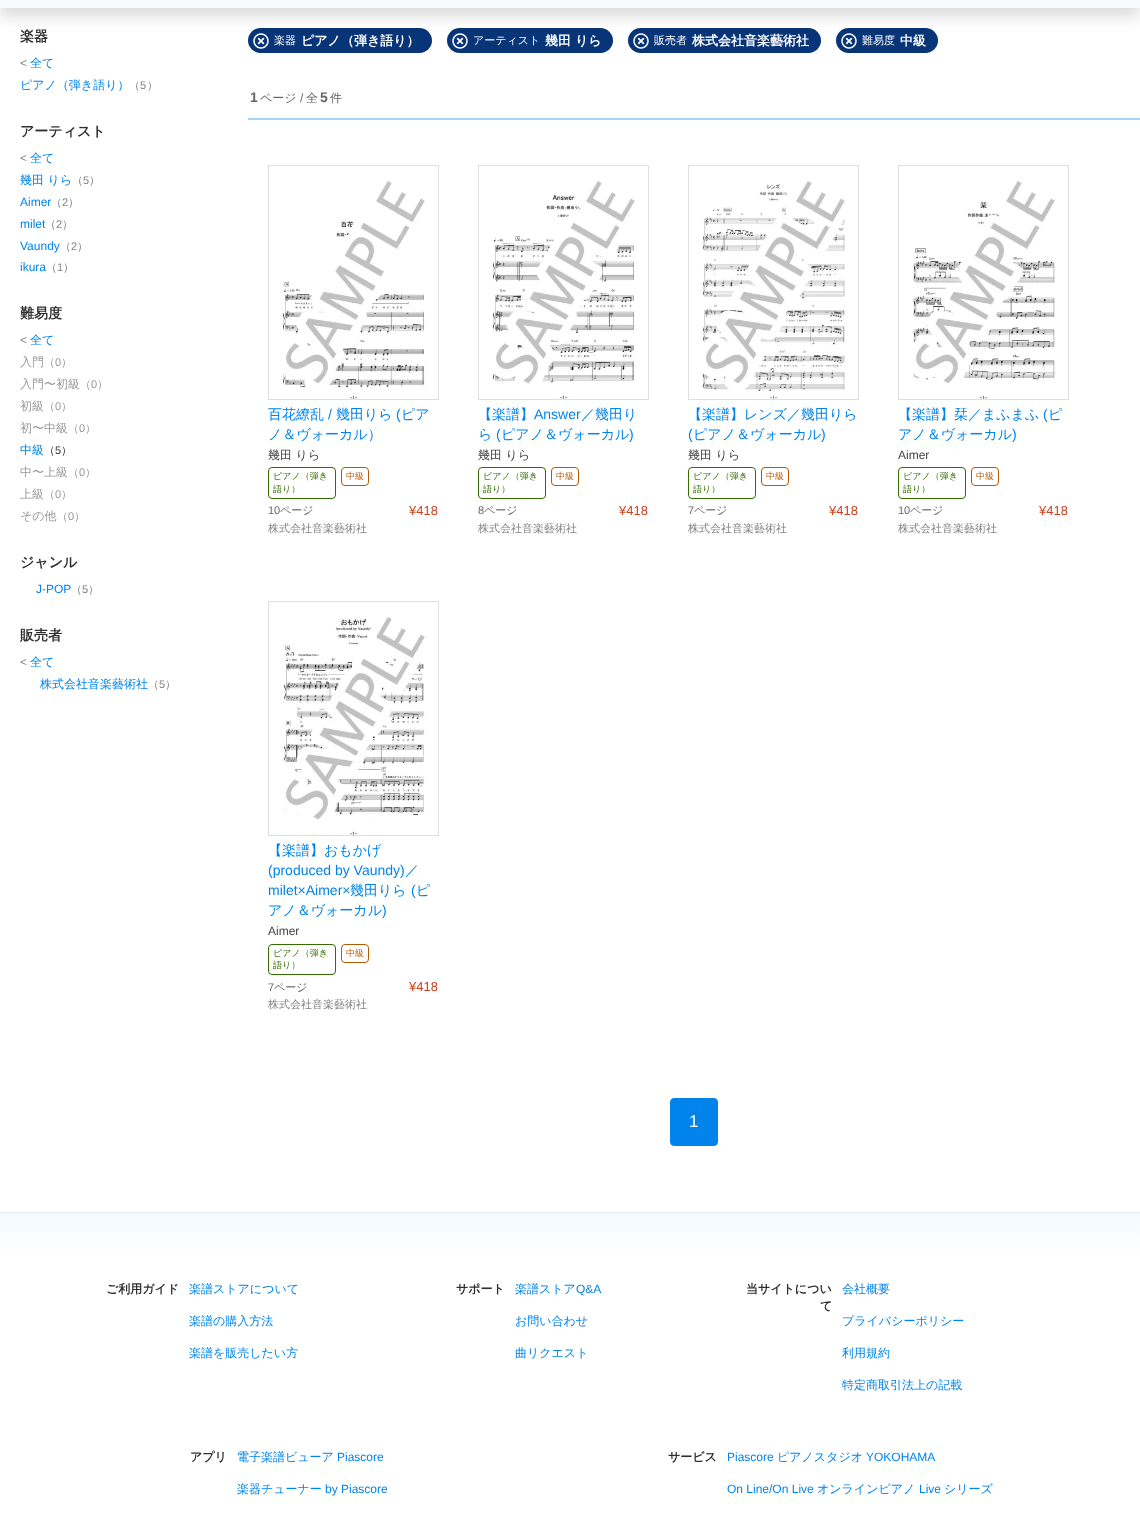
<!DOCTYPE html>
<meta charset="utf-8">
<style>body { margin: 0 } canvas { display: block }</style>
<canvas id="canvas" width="1140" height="1514"></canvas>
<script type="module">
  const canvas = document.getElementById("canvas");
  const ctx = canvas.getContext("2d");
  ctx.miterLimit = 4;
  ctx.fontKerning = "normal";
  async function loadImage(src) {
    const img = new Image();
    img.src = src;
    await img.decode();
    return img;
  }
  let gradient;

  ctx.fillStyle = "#ffffff";
  ctx.fillRect(0, 0, 1140, 1514);
  ctx.fillStyle = "#083578";
  ctx.beginPath();
  ctx.roundRect(248, 28, 184, 25, 12.5);
  ctx.fill();
  ctx.drawImage(await loadImage("img1.png"), 253, 33, 16, 16);
  ctx.beginPath();
  ctx.roundRect(447, 28, 166, 25, 12.5);
  ctx.fill();
  ctx.drawImage(await loadImage("img1.png"), 452, 33, 16, 16);
  ctx.beginPath();
  ctx.roundRect(628, 28, 193, 25, 12.5);
  ctx.fill();
  ctx.drawImage(await loadImage("img1.png"), 633, 33, 16, 16);
  ctx.beginPath();
  ctx.roundRect(836, 28, 102, 25, 12.5);
  ctx.fill();
  ctx.drawImage(await loadImage("img1.png"), 841, 33, 16, 16);
  ctx.fillStyle = "rgba(0, 0, 0, 0.15)";
  ctx.filter = "blur(8px)";
  ctx.beginPath();
  ctx.rect(0, -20, 1140, 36);
  ctx.fill();
  ctx.filter = "none";
  ctx.fillStyle = "#f8f9fa";
  ctx.fillRect(0, 0, 1140, 8);
  ctx.font = "bold 14px WenQuanYi Zen Hei";
  ctx.fillStyle = "#2f2f2f";
  ctx.fillText("楽器", 20, 41);
  ctx.font = "12px Liberation Sans";
  ctx.fillStyle = "#838383";
  ctx.fillText("<", 20, 67);
  ctx.font = "500 12px WenQuanYi Zen Hei";
  ctx.fillStyle = "#0083ea";
  ctx.fillText("全て", 30, 67);
  ctx.fillText("ピアノ（弾き語り）", 20, 89);
  ctx.font = "500 11px WenQuanYi Zen Hei";
  ctx.fillStyle = "#838383";
  ctx.fillText("（", 129, 89);
  ctx.font = "11px Liberation Sans";
  ctx.fillText("5", 140, 89);
  ctx.font = "500 11px WenQuanYi Zen Hei";
  ctx.fillText("）", 147, 89);
  ctx.font = "bold 14px WenQuanYi Zen Hei";
  ctx.fillStyle = "#2f2f2f";
  ctx.fillText("アーティスト", 20, 136);
  ctx.font = "12px Liberation Sans";
  ctx.fillStyle = "#838383";
  ctx.fillText("<", 20, 162);
  ctx.font = "500 12px WenQuanYi Zen Hei";
  ctx.fillStyle = "#0083ea";
  ctx.fillText("全て", 30, 162);
  ctx.fillText("幾田 りら", 20, 184);
  ctx.font = "500 11px WenQuanYi Zen Hei";
  ctx.fillStyle = "#838383";
  ctx.fillText("（", 72, 184);
  ctx.font = "11px Liberation Sans";
  ctx.fillText("5", 83, 184);
  ctx.font = "500 11px WenQuanYi Zen Hei";
  ctx.fillText("）", 89, 184);
  ctx.font = "12px Liberation Sans";
  ctx.fillStyle = "#0083ea";
  ctx.fillText("Aimer", 20, 206);
  ctx.font = "500 11px WenQuanYi Zen Hei";
  ctx.fillStyle = "#838383";
  ctx.fillText("（", 51, 206);
  ctx.font = "11px Liberation Sans";
  ctx.fillText("2", 62, 206);
  ctx.font = "500 11px WenQuanYi Zen Hei";
  ctx.fillText("）", 68, 206);
  ctx.font = "12px Liberation Sans";
  ctx.fillStyle = "#0083ea";
  ctx.fillText("milet", 20, 228);
  ctx.font = "500 11px WenQuanYi Zen Hei";
  ctx.fillStyle = "#838383";
  ctx.fillText("（", 45, 228);
  ctx.font = "11px Liberation Sans";
  ctx.fillText("2", 56, 228);
  ctx.font = "500 11px WenQuanYi Zen Hei";
  ctx.fillText("）", 62, 228);
  ctx.font = "12px Liberation Sans";
  ctx.fillStyle = "#0083ea";
  ctx.fillText("Vaundy", 20, 250);
  ctx.font = "500 11px WenQuanYi Zen Hei";
  ctx.fillStyle = "#838383";
  ctx.fillText("（", 60, 250);
  ctx.font = "11px Liberation Sans";
  ctx.fillText("2", 71, 250);
  ctx.font = "500 11px WenQuanYi Zen Hei";
  ctx.fillText("）", 77, 250);
  ctx.font = "12px Liberation Sans";
  ctx.fillStyle = "#0083ea";
  ctx.fillText("ikura", 20, 271);
  ctx.font = "500 11px WenQuanYi Zen Hei";
  ctx.fillStyle = "#838383";
  ctx.fillText("（", 46, 271);
  ctx.font = "11px Liberation Sans";
  ctx.fillText("1", 57, 271);
  ctx.font = "500 11px WenQuanYi Zen Hei";
  ctx.fillText("）", 63, 271);
  ctx.font = "bold 14px WenQuanYi Zen Hei";
  ctx.fillStyle = "#2f2f2f";
  ctx.fillText("難易度", 20, 318);
  ctx.font = "12px Liberation Sans";
  ctx.fillStyle = "#838383";
  ctx.fillText("<", 20, 344);
  ctx.font = "500 12px WenQuanYi Zen Hei";
  ctx.fillStyle = "#0083ea";
  ctx.fillText("全て", 30, 344);
  ctx.fillStyle = "#999999";
  ctx.fillText("入門", 20, 366);
  ctx.font = "500 11px WenQuanYi Zen Hei";
  ctx.fillText("（", 44, 366);
  ctx.font = "11px Liberation Sans";
  ctx.fillText("0", 55, 366);
  ctx.font = "500 11px WenQuanYi Zen Hei";
  ctx.fillText("）", 61, 366);
  ctx.font = "500 12px WenQuanYi Zen Hei";
  ctx.fillText("入門〜初級", 20, 388);
  ctx.font = "500 11px WenQuanYi Zen Hei";
  ctx.fillText("（", 80, 388);
  ctx.font = "11px Liberation Sans";
  ctx.fillText("0", 91, 388);
  ctx.font = "500 11px WenQuanYi Zen Hei";
  ctx.fillText("）", 97, 388);
  ctx.font = "500 12px WenQuanYi Zen Hei";
  ctx.fillText("初級", 20, 410);
  ctx.font = "500 11px WenQuanYi Zen Hei";
  ctx.fillText("（", 44, 410);
  ctx.font = "11px Liberation Sans";
  ctx.fillText("0", 55, 410);
  ctx.font = "500 11px WenQuanYi Zen Hei";
  ctx.fillText("）", 61, 410);
  ctx.font = "500 12px WenQuanYi Zen Hei";
  ctx.fillText("初〜中級", 20, 432);
  ctx.font = "500 11px WenQuanYi Zen Hei";
  ctx.fillText("（", 68, 432);
  ctx.font = "11px Liberation Sans";
  ctx.fillText("0", 79, 432);
  ctx.font = "500 11px WenQuanYi Zen Hei";
  ctx.fillText("）", 85, 432);
  ctx.font = "500 12px WenQuanYi Zen Hei";
  ctx.fillStyle = "#0083ea";
  ctx.fillText("中級", 20, 454);
  ctx.font = "500 11px WenQuanYi Zen Hei";
  ctx.fillStyle = "#2f2f2f";
  ctx.fillText("（", 44, 454);
  ctx.font = "11px Liberation Sans";
  ctx.fillText("5", 55, 454);
  ctx.font = "500 11px WenQuanYi Zen Hei";
  ctx.fillText("）", 61, 454);
  ctx.font = "500 12px WenQuanYi Zen Hei";
  ctx.fillStyle = "#999999";
  ctx.fillText("中〜上級", 20, 476);
  ctx.font = "500 11px WenQuanYi Zen Hei";
  ctx.fillText("（", 68, 476);
  ctx.font = "11px Liberation Sans";
  ctx.fillText("0", 79, 476);
  ctx.font = "500 11px WenQuanYi Zen Hei";
  ctx.fillText("）", 85, 476);
  ctx.font = "500 12px WenQuanYi Zen Hei";
  ctx.fillText("上級", 20, 498);
  ctx.font = "500 11px WenQuanYi Zen Hei";
  ctx.fillText("（", 44, 498);
  ctx.font = "11px Liberation Sans";
  ctx.fillText("0", 55, 498);
  ctx.font = "500 11px WenQuanYi Zen Hei";
  ctx.fillText("）", 61, 498);
  ctx.font = "500 12px WenQuanYi Zen Hei";
  ctx.fillText("その他", 20, 520);
  ctx.font = "500 11px WenQuanYi Zen Hei";
  ctx.fillText("（", 57, 520);
  ctx.font = "11px Liberation Sans";
  ctx.fillText("0", 68, 520);
  ctx.font = "500 11px WenQuanYi Zen Hei";
  ctx.fillText("）", 74, 520);
  ctx.font = "bold 14px WenQuanYi Zen Hei";
  ctx.fillStyle = "#2f2f2f";
  ctx.fillText("ジャンル", 20, 567);
  ctx.font = "12px Liberation Sans";
  ctx.fillStyle = "#0083ea";
  ctx.fillText("J-POP", 36, 593);
  ctx.font = "500 11px WenQuanYi Zen Hei";
  ctx.fillStyle = "#838383";
  ctx.fillText("（", 71, 593);
  ctx.font = "11px Liberation Sans";
  ctx.fillText("5", 82, 593);
  ctx.font = "500 11px WenQuanYi Zen Hei";
  ctx.fillText("）", 88, 593);
  ctx.font = "bold 14px WenQuanYi Zen Hei";
  ctx.fillStyle = "#2f2f2f";
  ctx.fillText("販売者", 20, 640);
  ctx.font = "12px Liberation Sans";
  ctx.fillStyle = "#838383";
  ctx.fillText("<", 20, 666);
  ctx.font = "500 12px WenQuanYi Zen Hei";
  ctx.fillStyle = "#0083ea";
  ctx.fillText("全て", 30, 666);
  ctx.fillText("株式会社音楽藝術社", 40, 688);
  ctx.font = "500 11px WenQuanYi Zen Hei";
  ctx.fillStyle = "#838383";
  ctx.fillText("（", 148, 688);
  ctx.font = "11px Liberation Sans";
  ctx.fillText("5", 159, 688);
  ctx.font = "500 11px WenQuanYi Zen Hei";
  ctx.fillText("）", 165, 688);
  ctx.fillStyle = "#ffffff";
  ctx.fillText("楽器", 274, 44);
  ctx.font = "bold 13px WenQuanYi Zen Hei";
  ctx.fillText("ピアノ（弾き語り）", 301, 45);
  ctx.font = "500 11px WenQuanYi Zen Hei";
  ctx.fillText("アーティスト", 473, 44);
  ctx.font = "bold 13px WenQuanYi Zen Hei";
  ctx.fillText("幾田 りら", 545, 45);
  ctx.font = "500 11px WenQuanYi Zen Hei";
  ctx.fillText("販売者", 654, 44);
  ctx.font = "bold 13px WenQuanYi Zen Hei";
  ctx.fillText("株式会社音楽藝術社", 692, 45);
  ctx.font = "500 11px WenQuanYi Zen Hei";
  ctx.fillText("難易度", 862, 44);
  ctx.font = "bold 13px WenQuanYi Zen Hei";
  ctx.fillText("中級", 900, 45);
  ctx.font = "bold 14px Liberation Sans";
  ctx.fillStyle = "#666666";
  ctx.fillText("1", 250, 102);
  ctx.font = "500 12px WenQuanYi Zen Hei";
  ctx.fillText("ページ", 260, 102);
  ctx.font = "12px Liberation Sans";
  ctx.fillText("/", 300, 102);
  ctx.font = "500 12px WenQuanYi Zen Hei";
  ctx.fillText("全", 306, 102);
  ctx.font = "bold 14px Liberation Sans";
  ctx.fillText("5", 320, 102);
  ctx.font = "500 12px WenQuanYi Zen Hei";
  ctx.fillText("件", 330, 102);
  ctx.fillStyle = "#a0d6ff";
  ctx.fillRect(248, 118, 892, 2);
  ctx.strokeStyle = "#dfdfdf";
  ctx.strokeRect(268.5, 165.5, 170, 234);
  ctx.drawImage(await loadImage("img2.png"), 282, 181, 144, 218);
  ctx.font = "500 14px WenQuanYi Zen Hei";
  ctx.fillStyle = "#0083ea";
  ctx.fillText("百花繚乱", 268, 419);
  ctx.font = "14px Liberation Sans";
  ctx.fillText("/", 328, 419);
  ctx.font = "500 14px WenQuanYi Zen Hei";
  ctx.fillText("幾田りら", 336, 419);
  ctx.font = "14px Liberation Sans";
  ctx.fillText("(", 396, 419);
  ctx.font = "500 14px WenQuanYi Zen Hei";
  ctx.fillText("ピア", 401, 419);
  ctx.fillText("ノ＆ヴォーカル）", 268, 439);
  ctx.font = "500 12px WenQuanYi Zen Hei";
  ctx.fillStyle = "#444444";
  ctx.fillText("幾田 りら", 268, 459);
  ctx.beginPath();
  ctx.roundRect(268.5, 467.5, 67, 31, 3.5);
  ctx.strokeStyle = "#366d02";
  ctx.stroke();
  ctx.font = "500 9px WenQuanYi Zen Hei";
  ctx.fillStyle = "#366d02";
  ctx.fillText("ピアノ（弾き", 273, 479);
  ctx.fillText("語り）", 273, 492);
  ctx.beginPath();
  ctx.roundRect(341.5, 467.5, 27, 18, 3.5);
  ctx.strokeStyle = "#b75901";
  ctx.stroke();
  ctx.fillStyle = "#b75901";
  ctx.fillText("中級", 346, 479);
  ctx.font = "11px Liberation Sans";
  ctx.fillStyle = "#666666";
  ctx.fillText("10", 268, 514);
  ctx.font = "500 11px WenQuanYi Zen Hei";
  ctx.fillText("ページ", 280, 514);
  ctx.font = "13px Liberation Sans";
  ctx.fillStyle = "#cf431e";
  ctx.fillText("¥418", 409, 515);
  ctx.font = "500 11px WenQuanYi Zen Hei";
  ctx.fillStyle = "#838383";
  ctx.fillText("株式会社音楽藝術社", 268, 532);
  ctx.strokeStyle = "#dfdfdf";
  ctx.strokeRect(478.5, 165.5, 170, 234);
  ctx.drawImage(await loadImage("img3.png"), 492, 181, 143, 218);
  ctx.font = "500 14px WenQuanYi Zen Hei";
  ctx.fillStyle = "#0083ea";
  ctx.fillText("【楽譜】", 478, 419);
  ctx.font = "14px Liberation Sans";
  ctx.fillText("Answer", 534, 419);
  ctx.font = "500 14px WenQuanYi Zen Hei";
  ctx.fillText("／幾田り", 581, 419);
  ctx.fillText("ら", 478, 439);
  ctx.font = "14px Liberation Sans";
  ctx.fillText("(", 496, 439);
  ctx.font = "500 14px WenQuanYi Zen Hei";
  ctx.fillText("ピアノ＆ヴォーカル", 501, 439);
  ctx.font = "14px Liberation Sans";
  ctx.fillText(")", 629, 439);
  ctx.font = "500 12px WenQuanYi Zen Hei";
  ctx.fillStyle = "#444444";
  ctx.fillText("幾田 りら", 478, 459);
  ctx.beginPath();
  ctx.roundRect(478.5, 467.5, 67, 31, 3.5);
  ctx.strokeStyle = "#366d02";
  ctx.stroke();
  ctx.font = "500 9px WenQuanYi Zen Hei";
  ctx.fillStyle = "#366d02";
  ctx.fillText("ピアノ（弾き", 483, 479);
  ctx.fillText("語り）", 483, 492);
  ctx.beginPath();
  ctx.roundRect(551.5, 467.5, 27, 18, 3.5);
  ctx.strokeStyle = "#b75901";
  ctx.stroke();
  ctx.fillStyle = "#b75901";
  ctx.fillText("中級", 556, 479);
  ctx.font = "11px Liberation Sans";
  ctx.fillStyle = "#666666";
  ctx.fillText("8", 478, 514);
  ctx.font = "500 11px WenQuanYi Zen Hei";
  ctx.fillText("ページ", 484, 514);
  ctx.font = "13px Liberation Sans";
  ctx.fillStyle = "#cf431e";
  ctx.fillText("¥418", 619, 515);
  ctx.font = "500 11px WenQuanYi Zen Hei";
  ctx.fillStyle = "#838383";
  ctx.fillText("株式会社音楽藝術社", 478, 532);
  ctx.strokeStyle = "#dfdfdf";
  ctx.strokeRect(688.5, 165.5, 170, 234);
  ctx.drawImage(await loadImage("img4.png"), 702, 181, 143, 218);
  ctx.font = "500 14px WenQuanYi Zen Hei";
  ctx.fillStyle = "#0083ea";
  ctx.fillText("【楽譜】レンズ／幾田りら", 688, 419);
  ctx.font = "14px Liberation Sans";
  ctx.fillText("(", 688, 439);
  ctx.font = "500 14px WenQuanYi Zen Hei";
  ctx.fillText("ピアノ＆ヴォーカル", 693, 439);
  ctx.font = "14px Liberation Sans";
  ctx.fillText(")", 821, 439);
  ctx.font = "500 12px WenQuanYi Zen Hei";
  ctx.fillStyle = "#444444";
  ctx.fillText("幾田 りら", 688, 459);
  ctx.beginPath();
  ctx.roundRect(688.5, 467.5, 67, 31, 3.5);
  ctx.strokeStyle = "#366d02";
  ctx.stroke();
  ctx.font = "500 9px WenQuanYi Zen Hei";
  ctx.fillStyle = "#366d02";
  ctx.fillText("ピアノ（弾き", 693, 479);
  ctx.fillText("語り）", 693, 492);
  ctx.beginPath();
  ctx.roundRect(761.5, 467.5, 27, 18, 3.5);
  ctx.strokeStyle = "#b75901";
  ctx.stroke();
  ctx.fillStyle = "#b75901";
  ctx.fillText("中級", 766, 479);
  ctx.font = "11px Liberation Sans";
  ctx.fillStyle = "#666666";
  ctx.fillText("7", 688, 514);
  ctx.font = "500 11px WenQuanYi Zen Hei";
  ctx.fillText("ページ", 694, 514);
  ctx.font = "13px Liberation Sans";
  ctx.fillStyle = "#cf431e";
  ctx.fillText("¥418", 829, 515);
  ctx.font = "500 11px WenQuanYi Zen Hei";
  ctx.fillStyle = "#838383";
  ctx.fillText("株式会社音楽藝術社", 688, 532);
  ctx.strokeStyle = "#dfdfdf";
  ctx.strokeRect(898.5, 165.5, 170, 234);
  ctx.drawImage(await loadImage("img5.png"), 912, 181, 143, 218);
  ctx.font = "500 14px WenQuanYi Zen Hei";
  ctx.fillStyle = "#0083ea";
  ctx.fillText("【楽譜】栞／まふまふ", 898, 419);
  ctx.font = "14px Liberation Sans";
  ctx.fillText("(", 1043, 419);
  ctx.font = "500 14px WenQuanYi Zen Hei";
  ctx.fillText("ピ", 1048, 419);
  ctx.fillText("アノ＆ヴォーカル", 898, 439);
  ctx.font = "14px Liberation Sans";
  ctx.fillText(")", 1012, 439);
  ctx.font = "12px Liberation Sans";
  ctx.fillStyle = "#444444";
  ctx.fillText("Aimer", 898, 459);
  ctx.beginPath();
  ctx.roundRect(898.5, 467.5, 67, 31, 3.5);
  ctx.strokeStyle = "#366d02";
  ctx.stroke();
  ctx.font = "500 9px WenQuanYi Zen Hei";
  ctx.fillStyle = "#366d02";
  ctx.fillText("ピアノ（弾き", 903, 479);
  ctx.fillText("語り）", 903, 492);
  ctx.beginPath();
  ctx.roundRect(971.5, 467.5, 27, 18, 3.5);
  ctx.strokeStyle = "#b75901";
  ctx.stroke();
  ctx.fillStyle = "#b75901";
  ctx.fillText("中級", 976, 479);
  ctx.font = "11px Liberation Sans";
  ctx.fillStyle = "#666666";
  ctx.fillText("10", 898, 514);
  ctx.font = "500 11px WenQuanYi Zen Hei";
  ctx.fillText("ページ", 910, 514);
  ctx.font = "13px Liberation Sans";
  ctx.fillStyle = "#cf431e";
  ctx.fillText("¥418", 1039, 515);
  ctx.font = "500 11px WenQuanYi Zen Hei";
  ctx.fillStyle = "#838383";
  ctx.fillText("株式会社音楽藝術社", 898, 532);
  ctx.strokeStyle = "#dfdfdf";
  ctx.strokeRect(268.5, 601.5, 170, 234);
  ctx.drawImage(await loadImage("img6.png"), 282, 617, 143, 218);
  ctx.font = "500 14px WenQuanYi Zen Hei";
  ctx.fillStyle = "#0083ea";
  ctx.fillText("【楽譜】おもかげ", 268, 855);
  ctx.font = "14px Liberation Sans";
  ctx.fillText("(produced by Vaundy)", 268, 875);
  ctx.font = "500 14px WenQuanYi Zen Hei";
  ctx.fillText("／", 405, 875);
  ctx.font = "14px Liberation Sans";
  ctx.fillText("milet×Aimer×", 268, 895);
  ctx.font = "500 14px WenQuanYi Zen Hei";
  ctx.fillText("幾田りら", 350, 895);
  ctx.font = "14px Liberation Sans";
  ctx.fillText("(", 411, 895);
  ctx.font = "500 14px WenQuanYi Zen Hei";
  ctx.fillText("ピ", 416, 895);
  ctx.fillText("アノ＆ヴォーカル", 268, 915);
  ctx.font = "14px Liberation Sans";
  ctx.fillText(")", 382, 915);
  ctx.font = "12px Liberation Sans";
  ctx.fillStyle = "#444444";
  ctx.fillText("Aimer", 268, 935);
  ctx.beginPath();
  ctx.roundRect(268.5, 944.5, 67, 30, 3.5);
  ctx.strokeStyle = "#366d02";
  ctx.stroke();
  ctx.font = "500 9px WenQuanYi Zen Hei";
  ctx.fillStyle = "#366d02";
  ctx.fillText("ピアノ（弾き", 273, 956);
  ctx.fillText("語り）", 273, 968);
  ctx.beginPath();
  ctx.roundRect(341.5, 944.5, 27, 18, 3.5);
  ctx.strokeStyle = "#b75901";
  ctx.stroke();
  ctx.fillStyle = "#b75901";
  ctx.fillText("中級", 346, 956);
  ctx.font = "11px Liberation Sans";
  ctx.fillStyle = "#666666";
  ctx.fillText("7", 268, 991);
  ctx.font = "500 11px WenQuanYi Zen Hei";
  ctx.fillText("ページ", 274, 991);
  ctx.font = "13px Liberation Sans";
  ctx.fillStyle = "#cf431e";
  ctx.fillText("¥418", 409, 991);
  ctx.font = "500 11px WenQuanYi Zen Hei";
  ctx.fillStyle = "#838383";
  ctx.fillText("株式会社音楽藝術社", 268, 1008);
  ctx.fillStyle = "#0083ea";
  ctx.beginPath();
  ctx.roundRect(670.5, 1098.5, 47, 47, 3.5);
  ctx.fill();
  ctx.strokeStyle = "#0083ea";
  ctx.stroke();
  ctx.font = "17px Liberation Sans";
  ctx.fillStyle = "#ffffff";
  ctx.fillText("1", 689, 1127);
  gradient = ctx.createLinearGradient(570, 1213, 570, 1261);
  gradient.addColorStop(0, "#f3faff");
  gradient.addColorStop(1, "#ffffff");
  ctx.fillStyle = gradient;
  ctx.fillRect(0, 1213, 1140, 38);
  ctx.fillStyle = "#dff1ff";
  ctx.fillRect(0, 1212, 1140, 1);
  ctx.font = "bold 12px WenQuanYi Zen Hei";
  ctx.fillStyle = "#2f2f2f";
  ctx.fillText("ご利用ガイド", 106, 1293);
  ctx.font = "500 12px WenQuanYi Zen Hei";
  ctx.fillStyle = "#0083ea";
  ctx.fillText("楽譜ストアについて", 189, 1293);
  ctx.fillText("楽譜の購入方法", 189, 1325);
  ctx.fillText("楽譜を販売したい方", 189, 1357);
  ctx.font = "bold 12px WenQuanYi Zen Hei";
  ctx.fillStyle = "#2f2f2f";
  ctx.fillText("サポート", 456, 1293);
  ctx.font = "500 12px WenQuanYi Zen Hei";
  ctx.fillStyle = "#0083ea";
  ctx.fillText("楽譜ストア", 515, 1293);
  ctx.font = "12px Liberation Sans";
  ctx.fillText("Q&A", 576, 1293);
  ctx.font = "500 12px WenQuanYi Zen Hei";
  ctx.fillText("お問い合わせ", 515, 1325);
  ctx.fillText("曲リクエスト", 515, 1357);
  ctx.font = "bold 12px WenQuanYi Zen Hei";
  ctx.fillStyle = "#2f2f2f";
  ctx.fillText("当サイトについ", 746, 1293);
  ctx.fillText("て", 820, 1310);
  ctx.font = "500 12px WenQuanYi Zen Hei";
  ctx.fillStyle = "#0083ea";
  ctx.fillText("会社概要", 842, 1293);
  ctx.fillText("プライバシーポリシー", 842, 1325);
  ctx.fillText("利用規約", 842, 1357);
  ctx.fillText("特定商取引法上の記載", 842, 1389);
  ctx.font = "bold 12px WenQuanYi Zen Hei";
  ctx.fillStyle = "#2f2f2f";
  ctx.fillText("アプリ", 190, 1461);
  ctx.font = "500 12px WenQuanYi Zen Hei";
  ctx.fillStyle = "#0083ea";
  ctx.fillText("電子楽譜ビューア", 237, 1461);
  ctx.font = "12px Liberation Sans";
  ctx.fillText("Piascore", 337, 1461);
  ctx.font = "500 12px WenQuanYi Zen Hei";
  ctx.fillText("楽器チューナー", 237, 1493);
  ctx.font = "12px Liberation Sans";
  ctx.fillText("by Piascore", 325, 1493);
  ctx.font = "bold 12px WenQuanYi Zen Hei";
  ctx.fillStyle = "#2f2f2f";
  ctx.fillText("サービス", 668, 1461);
  ctx.font = "12px Liberation Sans";
  ctx.fillStyle = "#0083ea";
  ctx.fillText("Piascore", 727, 1461);
  ctx.font = "500 12px WenQuanYi Zen Hei";
  ctx.fillText("ピアノスタジオ", 777, 1461);
  ctx.font = "12px Liberation Sans";
  ctx.fillText("YOKOHAMA", 866, 1461);
  ctx.fillText("On Line/On Live", 727, 1493);
  ctx.font = "500 12px WenQuanYi Zen Hei";
  ctx.fillText("オンラインピアノ", 817, 1493);
  ctx.font = "12px Liberation Sans";
  ctx.fillText("Live", 919, 1493);
  ctx.font = "500 12px WenQuanYi Zen Hei";
  ctx.fillText("シリーズ", 944, 1493);
</script>
